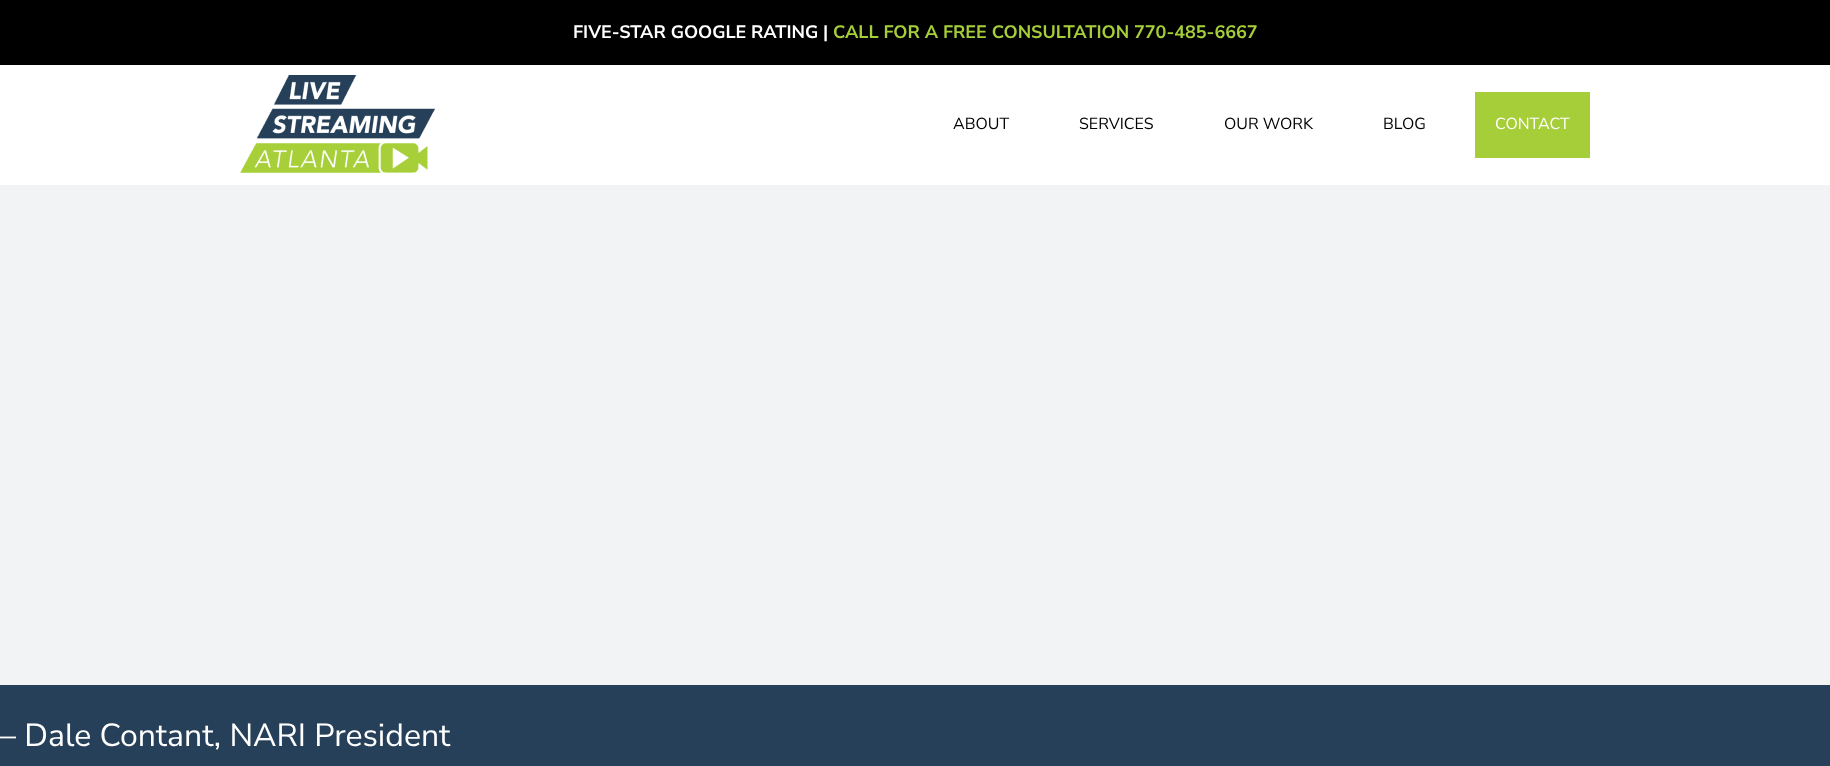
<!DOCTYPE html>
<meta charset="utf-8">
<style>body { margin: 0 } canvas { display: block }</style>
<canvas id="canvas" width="1830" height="766"></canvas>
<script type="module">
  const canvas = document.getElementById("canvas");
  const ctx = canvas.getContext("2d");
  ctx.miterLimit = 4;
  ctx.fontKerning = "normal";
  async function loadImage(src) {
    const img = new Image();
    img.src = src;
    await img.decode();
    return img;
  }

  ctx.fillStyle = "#26405a";
  ctx.fillRect(0, 0, 1830, 766);
  ctx.fillStyle = "#000000";
  ctx.fillRect(0, 0, 1830, 65);
  ctx.font = "bold 18px Nunito Sans";
  ctx.fillStyle = "#ffffff";
  ctx.fillText("FIVE-STAR GOOGLE RATING |", 573, 38);
  ctx.fillStyle = "#a6ce39";
  ctx.fillText("CALL FOR A FREE CONSULTATION 770-485-6667", 833, 38);
  ctx.fillStyle = "#ffffff";
  ctx.fillRect(0, 65, 1830, 120);
  ctx.drawImage(await loadImage("img1.png"), 240, 75, 195, 100);
  ctx.font = "16px Nunito Sans";
  ctx.fillStyle = "#000000";
  ctx.fillText("ABOUT", 953, 129);
  ctx.fillText("SERVICES", 1079, 129);
  ctx.fillText("OUR WORK", 1224, 129);
  ctx.fillText("BLOG", 1383, 129);
  ctx.fillStyle = "#a6ce39";
  ctx.fillRect(1475, 92, 115, 66);
  ctx.fillStyle = "#ffffff";
  ctx.fillText("CONTACT", 1495, 129);
  ctx.fillStyle = "#f2f3f5";
  ctx.fillRect(0, 185, 1830, 500);
  ctx.font = "32px Nunito Sans";
  ctx.fillStyle = "#ffffff";
  ctx.fillText("– Dale Contant, NARI President", 0, 746);
</script>
